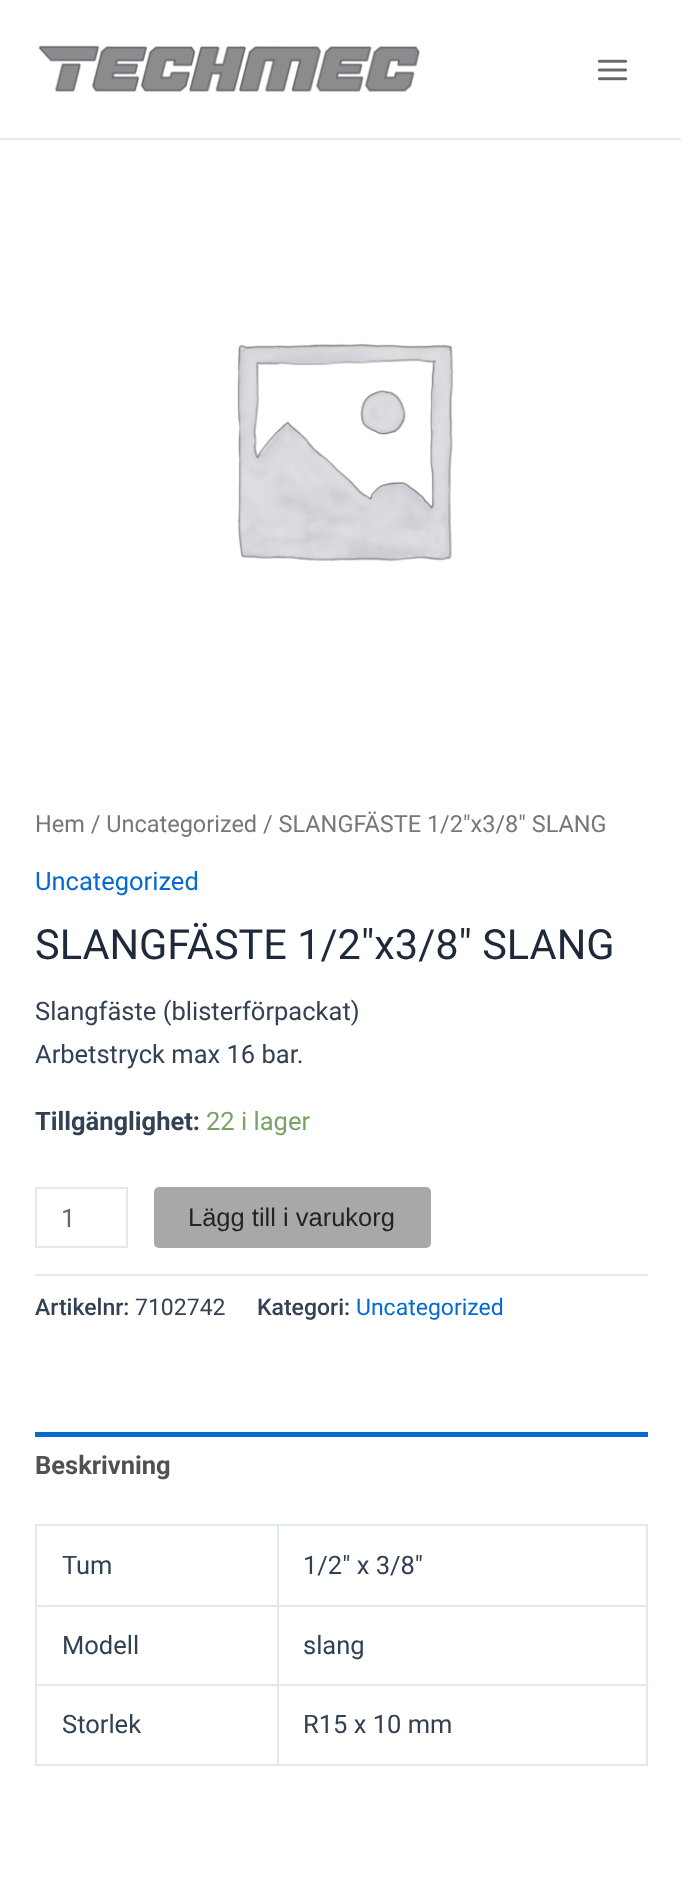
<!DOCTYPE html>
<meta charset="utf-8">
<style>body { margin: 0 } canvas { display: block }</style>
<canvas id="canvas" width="681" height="1878"></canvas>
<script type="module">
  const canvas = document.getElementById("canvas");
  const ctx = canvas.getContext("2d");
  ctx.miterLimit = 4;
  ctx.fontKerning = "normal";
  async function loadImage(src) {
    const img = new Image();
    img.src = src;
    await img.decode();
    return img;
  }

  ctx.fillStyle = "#ffffff";
  ctx.fillRect(0, 0, 681, 1878);
  ctx.fillStyle = "#e2e8f0";
  ctx.fillRect(0, 138, 681, 2);
  ctx.drawImage(await loadImage("img1.png"), 38, 45, 382, 47);
  ctx.drawImage(await loadImage("img2.png"), 597, 59, 31, 22);
  ctx.drawImage(await loadImage("img3.png"), 237, 343, 217, 219);
  ctx.font = "23.5px Roboto";
  ctx.fillStyle = "#777777";
  ctx.fillText("Hem / Uncategorized / SLANGFÄSTE 1/2″x3/8″ SLANG", 35, 832);
  ctx.font = "25.5px Roboto";
  ctx.fillStyle = "#046bd2";
  ctx.fillText("Uncategorized", 35, 890);
  ctx.font = "41.5px Roboto";
  ctx.fillStyle = "#1e293b";
  ctx.fillText("SLANGFÄSTE 1/2″x3/8″ SLANG", 35, 959);
  ctx.font = "25.5px Roboto";
  ctx.fillStyle = "#334155";
  ctx.fillText("Slangfäste (blisterförpackat)", 35, 1020);
  ctx.fillText("Arbetstryck max 16 bar.", 35, 1063);
  ctx.font = "bold 25.5px Roboto";
  ctx.fillText("Tillgänglighet:", 35, 1130);
  ctx.font = "25.5px Roboto";
  ctx.fillStyle = "#77a464";
  ctx.fillText("22 i lager", 206, 1130);
  ctx.strokeStyle = "#e2e8f0";
  ctx.lineWidth = 2;
  ctx.strokeRect(36, 1188, 91, 59);
  ctx.fillStyle = "#666666";
  ctx.fillText("1", 61, 1227);
  ctx.fillStyle = "#a8a8a8";
  ctx.beginPath();
  ctx.roundRect(154, 1187, 277, 61, 5);
  ctx.fill();
  ctx.font = "25.5px Liberation Sans";
  ctx.fillStyle = "#232323";
  ctx.fillText("Lägg till i varukorg", 188, 1226);
  ctx.fillStyle = "#e2e8f0";
  ctx.fillRect(35, 1274, 613, 2);
  ctx.font = "500 23px Roboto";
  ctx.fillStyle = "#334155";
  ctx.fillText("Artikelnr:", 35, 1315);
  ctx.font = "23px Roboto";
  ctx.fillText("7102742", 135, 1315);
  ctx.font = "500 23px Roboto";
  ctx.fillText("Kategori:", 257, 1315);
  ctx.font = "23px Roboto";
  ctx.fillStyle = "#046bd2";
  ctx.fillText("Uncategorized", 356, 1315);
  ctx.fillRect(35, 1432, 613, 5);
  ctx.font = "bold 25.5px Roboto";
  ctx.fillStyle = "#515151";
  ctx.fillText("Beskrivning", 35, 1474);
  ctx.fillStyle = "#e2e8f0";
  ctx.fillRect(35, 1524, 613, 2);
  ctx.fillRect(35, 1524, 2, 242);
  ctx.fillRect(277, 1526, 2, 159);
  ctx.fillRect(37, 1605, 241, 2);
  ctx.font = "25.5px Roboto";
  ctx.fillStyle = "#334155";
  ctx.fillText("Tum", 62, 1574);
  ctx.fillStyle = "#e2e8f0";
  ctx.fillRect(646, 1526, 2, 159);
  ctx.fillRect(278, 1605, 370, 2);
  ctx.fillStyle = "#334155";
  ctx.fillText("1/2″ x 3/8″", 303, 1574);
  ctx.fillStyle = "#e2e8f0";
  ctx.fillRect(37, 1684, 611, 2);
  ctx.fillStyle = "#334155";
  ctx.fillText("Modell", 62, 1654);
  ctx.fillText("slang", 303, 1654);
  ctx.fillStyle = "#e2e8f0";
  ctx.fillRect(277, 1685, 2, 81);
  ctx.fillRect(37, 1764, 241, 2);
  ctx.fillStyle = "#334155";
  ctx.fillText("Storlek", 62, 1733);
  ctx.fillStyle = "#e2e8f0";
  ctx.fillRect(646, 1685, 2, 81);
  ctx.fillRect(278, 1764, 370, 2);
  ctx.fillStyle = "#334155";
  ctx.fillText("R15 x 10 mm", 303, 1733);
</script>
